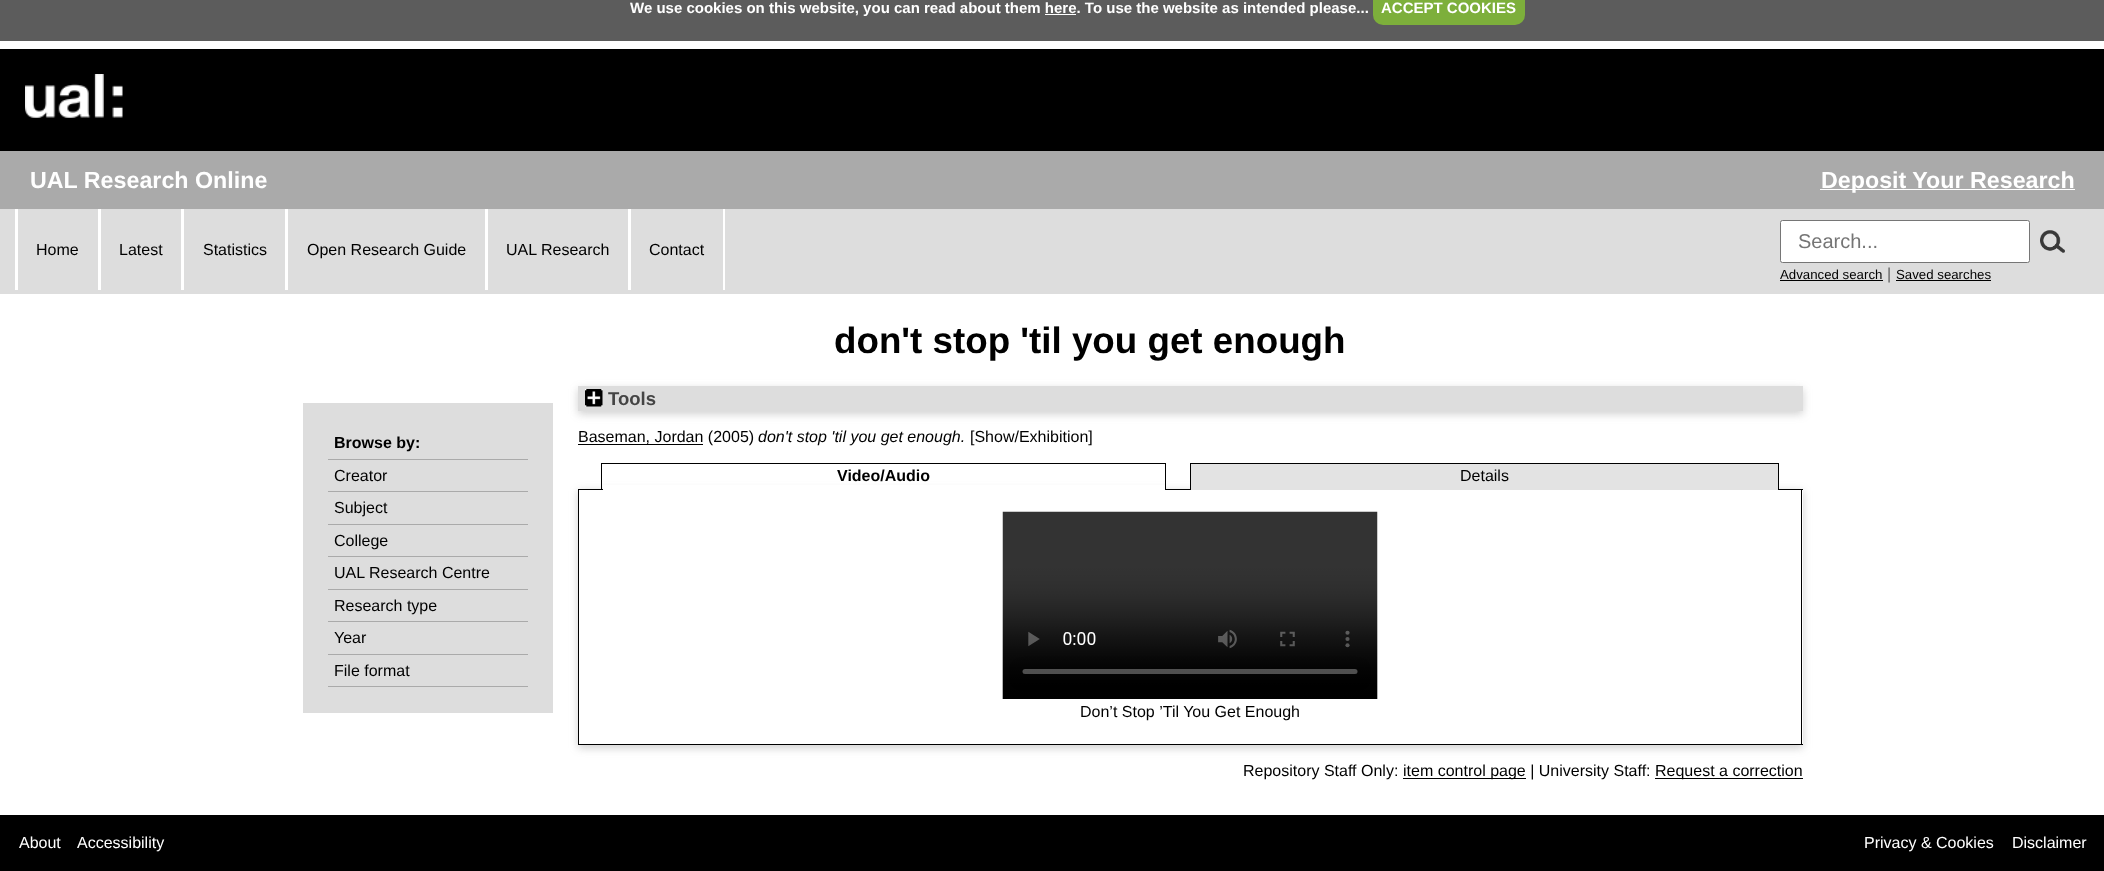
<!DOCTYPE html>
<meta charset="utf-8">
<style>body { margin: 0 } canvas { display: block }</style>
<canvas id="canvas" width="2104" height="871"></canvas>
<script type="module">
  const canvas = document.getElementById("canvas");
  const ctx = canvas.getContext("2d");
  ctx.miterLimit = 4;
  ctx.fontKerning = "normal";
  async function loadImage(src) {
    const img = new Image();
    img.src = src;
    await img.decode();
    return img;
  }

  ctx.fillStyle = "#ffffff";
  ctx.fillRect(0, 0, 2104, 871);
  ctx.fillStyle = "#5c5c5c";
  ctx.fillRect(0, 0, 2104, 41);
  ctx.font = "bold 15px Liberation Sans";
  ctx.fillStyle = "#ffffff";
  ctx.fillText("We use cookies on this website, you can read about them here. To use the website as intended please...", 630, 13);
  ctx.fillStyle = "#7daf3b";
  ctx.beginPath();
  ctx.roundRect(1373, -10, 152, 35, 10);
  ctx.fill();
  ctx.fillStyle = "#ffffff";
  ctx.fillText("ACCEPT COOKIES", 1381, 13);
  ctx.fillRect(1045, 14, 31, 1);
  ctx.fillStyle = "#000000";
  ctx.fillRect(0, 49, 2104, 102);
  ctx.drawImage(await loadImage("img1.png"), 25, 74, 98, 44);
  ctx.fillStyle = "#aaaaaa";
  ctx.fillRect(0, 151, 2104, 58);
  ctx.font = "bold 23.25px Liberation Sans";
  ctx.fillStyle = "#ffffff";
  ctx.fillText("UAL Research Online", 30, 188);
  ctx.fillRect(1820, 189, 255, 1);
  ctx.fillText("Deposit Your Research", 1821, 188);
  ctx.fillStyle = "#dddddd";
  ctx.fillRect(0, 209, 2104, 85);
  ctx.fillStyle = "#ffffff";
  ctx.fillRect(15, 209, 3, 81);
  ctx.font = "16px Liberation Sans";
  ctx.fillStyle = "#000000";
  ctx.fillText("Home", 36, 255);
  ctx.fillStyle = "#ffffff";
  ctx.fillRect(98, 209, 3, 81);
  ctx.fillStyle = "#000000";
  ctx.fillText("Latest", 119, 255);
  ctx.fillStyle = "#ffffff";
  ctx.fillRect(181, 209, 3, 81);
  ctx.fillStyle = "#000000";
  ctx.fillText("Statistics", 203, 255);
  ctx.fillStyle = "#ffffff";
  ctx.fillRect(285, 209, 3, 81);
  ctx.fillStyle = "#000000";
  ctx.fillText("Open Research Guide", 307, 255);
  ctx.fillStyle = "#ffffff";
  ctx.fillRect(485, 209, 3, 81);
  ctx.fillStyle = "#000000";
  ctx.fillText("UAL Research", 506, 255);
  ctx.fillStyle = "#ffffff";
  ctx.fillRect(723, 209, 2, 81);
  ctx.fillRect(628, 209, 3, 81);
  ctx.fillStyle = "#000000";
  ctx.fillText("Contact", 649, 255);
  ctx.fillStyle = "#ffffff";
  ctx.beginPath();
  ctx.roundRect(1780.5, 220.5, 249, 42, 2);
  ctx.fill();
  ctx.strokeStyle = "#767676";
  ctx.stroke();
  ctx.font = "20px Liberation Sans";
  ctx.fillStyle = "#757575";
  ctx.fillText("Search...", 1798, 248);
  ctx.drawImage(await loadImage("img2.png"), 2040, 230, 25, 23);
  ctx.font = "13.25px Liberation Sans";
  ctx.fillStyle = "#000000";
  ctx.fillText("Advanced search", 1780, 279);
  ctx.fillRect(1780, 280, 103, 1);
  ctx.font = "16px Liberation Sans";
  ctx.fillStyle = "#606060";
  ctx.fillText("|", 1887, 279);
  ctx.font = "13.25px Liberation Sans";
  ctx.fillStyle = "#000000";
  ctx.fillText("Saved searches", 1896, 279);
  ctx.fillRect(1896, 280, 95, 1);
  ctx.font = "bold 36.75px Liberation Sans";
  ctx.fillText("don't stop 'til you get enough", 834, 353);
  ctx.fillStyle = "#dddddd";
  ctx.fillRect(303, 403, 250, 310);
  ctx.fillStyle = "#aaaaaa";
  ctx.fillRect(328, 459, 200, 1);
  ctx.font = "bold 16px Liberation Sans";
  ctx.fillStyle = "#000000";
  ctx.fillText("Browse by:", 334, 448);
  ctx.fillStyle = "#aaaaaa";
  ctx.fillRect(328, 491, 200, 1);
  ctx.font = "16px Liberation Sans";
  ctx.fillStyle = "#000000";
  ctx.fillText("Creator", 334, 481);
  ctx.fillStyle = "#aaaaaa";
  ctx.fillRect(328, 524, 200, 1);
  ctx.fillStyle = "#000000";
  ctx.fillText("Subject", 334, 513);
  ctx.fillStyle = "#aaaaaa";
  ctx.fillRect(328, 556, 200, 1);
  ctx.fillStyle = "#000000";
  ctx.fillText("College", 334, 546);
  ctx.fillStyle = "#aaaaaa";
  ctx.fillRect(328, 589, 200, 1);
  ctx.fillStyle = "#000000";
  ctx.fillText("UAL Research Centre", 334, 578);
  ctx.fillStyle = "#aaaaaa";
  ctx.fillRect(328, 621, 200, 1);
  ctx.fillStyle = "#000000";
  ctx.fillText("Research type", 334, 611);
  ctx.fillStyle = "#aaaaaa";
  ctx.fillRect(328, 654, 200, 1);
  ctx.fillStyle = "#000000";
  ctx.fillText("Year", 334, 643);
  ctx.fillStyle = "#aaaaaa";
  ctx.fillRect(328, 686, 200, 1);
  ctx.fillStyle = "#000000";
  ctx.fillText("File format", 334, 676);
  ctx.fillStyle = "rgba(100, 100, 100, 0.3)";
  ctx.filter = "blur(4px)";
  ctx.beginPath();
  ctx.rect(578, 389, 1225, 25);
  ctx.fill();
  ctx.filter = "none";
  ctx.fillStyle = "#dddddd";
  ctx.fillRect(578, 386, 1225, 25);
  ctx.drawImage(await loadImage("img3.png"), 585, 389, 18, 18);
  ctx.font = "bold 18.5px Liberation Sans";
  ctx.fillStyle = "#444444";
  ctx.fillText("Tools", 608, 405);
  ctx.fillStyle = "#000000";
  ctx.fillRect(578, 444, 125, 1);
  ctx.font = "16px Liberation Sans";
  ctx.fillText("Baseman, Jordan (2005)", 578, 442);
  ctx.font = "italic 16px Liberation Sans";
  ctx.fillText("don't stop 'til you get enough.", 758, 442);
  ctx.font = "16px Liberation Sans";
  ctx.fillText("[Show/Exhibition]", 970, 442);
  ctx.save();
  ctx.beginPath();
  ctx.moveTo(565, 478);
  ctx.lineTo(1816, 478);
  ctx.lineTo(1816, 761);
  ctx.lineTo(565, 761);
  ctx.closePath();
  ctx.moveTo(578, 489);
  ctx.lineTo(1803, 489);
  ctx.lineTo(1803, 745);
  ctx.lineTo(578, 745);
  ctx.closePath();
  ctx.clip("evenodd");
  ctx.fillStyle = "rgba(100, 100, 100, 0.3)";
  ctx.filter = "blur(4px)";
  ctx.beginPath();
  ctx.rect(578, 491, 1225, 257);
  ctx.fill();
  ctx.filter = "none";
  ctx.restore();
  ctx.fillRect(1801, 489, 1, 256);
  ctx.fillRect(578, 744, 1225, 1);
  ctx.fillRect(578, 489, 1, 256);
  ctx.fillRect(578, 489, 612, 1);
  ctx.fillStyle = "#ffffff";
  ctx.fillRect(603, 485, 562, 5);
  ctx.fillStyle = "#000000";
  ctx.fillRect(601, 463, 565, 1);
  ctx.fillRect(1165, 463, 1, 27);
  ctx.fillRect(601, 463, 1, 27);
  ctx.font = "bold 16px Liberation Sans";
  ctx.fillText("Video/Audio", 837, 481);
  ctx.fillRect(1779, 489, 24, 1);
  ctx.fillStyle = "#e3e3e3";
  ctx.fillRect(1191, 464, 587, 26);
  ctx.fillStyle = "#000000";
  ctx.fillRect(1190, 463, 589, 1);
  ctx.fillRect(1778, 463, 1, 27);
  ctx.fillRect(1190, 463, 1, 27);
  ctx.font = "16px Liberation Sans";
  ctx.fillText("Details", 1460, 481);
  ctx.drawImage(await loadImage("img4.png"), 1002, 511, 376, 188);
  ctx.fillText("Don’t Stop ’Til You Get Enough", 1080, 717);
  ctx.fillText("Repository Staff Only:", 1243, 776);
  ctx.fillRect(1403, 778, 123, 1);
  ctx.fillText("item control page | University Staff:", 1403, 776);
  ctx.fillRect(1655, 778, 148, 1);
  ctx.fillText("Request a correction", 1655, 776);
  ctx.fillRect(0, 815, 2104, 56);
  ctx.fillStyle = "#ffffff";
  ctx.fillText("About", 19, 848);
  ctx.fillText("Accessibility", 77, 848);
  ctx.fillText("Privacy & Cookies", 1864, 848);
  ctx.fillText("Disclaimer", 2012, 848);
</script>
